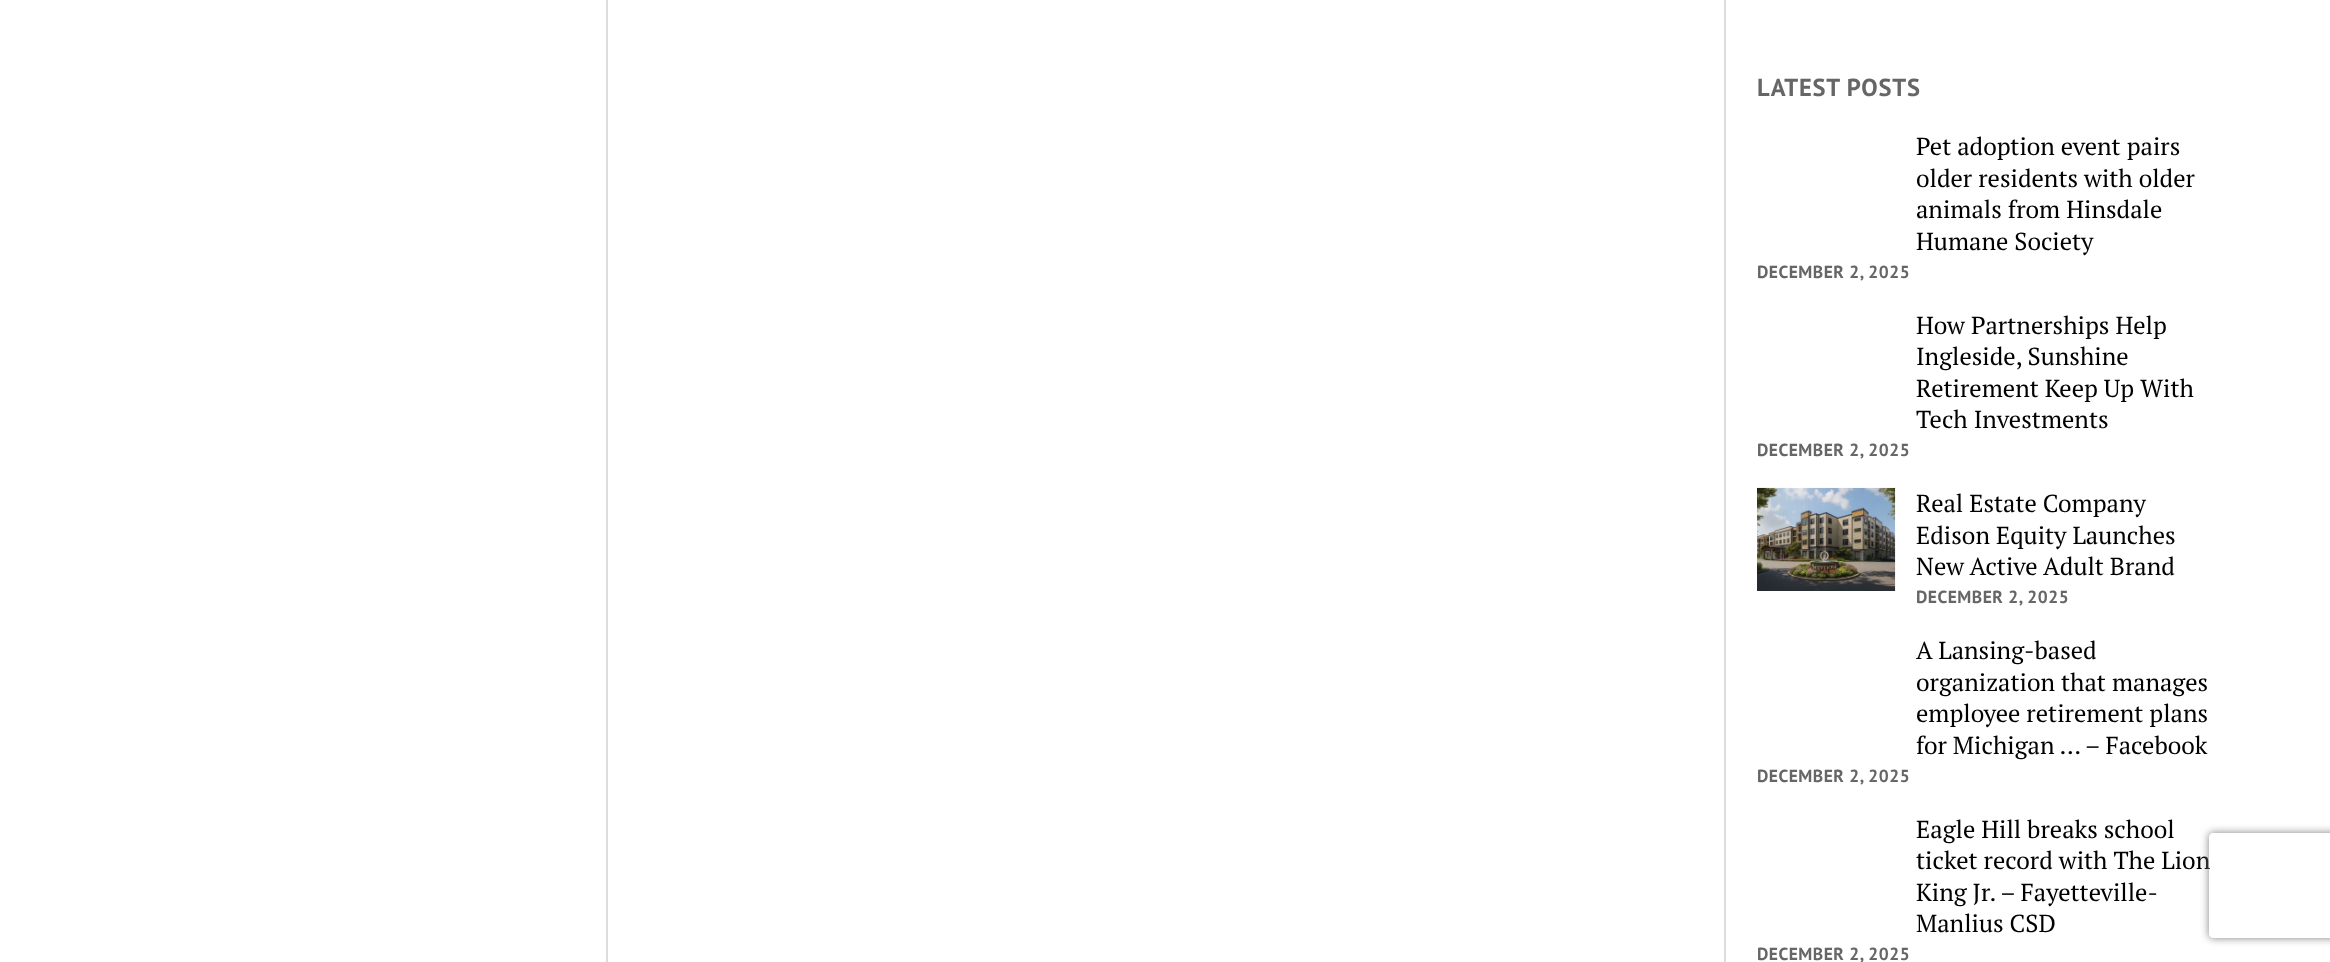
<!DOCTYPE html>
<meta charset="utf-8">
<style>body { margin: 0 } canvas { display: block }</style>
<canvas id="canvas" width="2330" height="962"></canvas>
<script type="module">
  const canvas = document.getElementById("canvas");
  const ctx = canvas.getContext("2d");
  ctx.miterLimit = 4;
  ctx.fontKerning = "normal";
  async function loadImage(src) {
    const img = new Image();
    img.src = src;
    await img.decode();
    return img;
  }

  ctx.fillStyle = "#ffffff";
  ctx.fillRect(0, 0, 2330, 962);
  ctx.fillStyle = "#dcdcdc";
  ctx.fillRect(606, 0, 2, 962);
  ctx.fillRect(1724, 0, 2, 962);
  ctx.letterSpacing = "0.75px";
  ctx.font = "bold 24.5px PT Sans";
  ctx.fillStyle = "#666666";
  ctx.fillText("LATEST POSTS", 1757, 96);
  ctx.letterSpacing = "0px";
  ctx.font = "24.5px PT Serif";
  ctx.fillStyle = "#000000";
  ctx.fillText("Pet adoption event pairs", 1916, 155);
  ctx.fillText("older residents with older", 1916, 187);
  ctx.fillText("animals from Hinsdale", 1916, 218);
  ctx.fillText("Humane Society", 1916, 250);
  ctx.letterSpacing = "0.5px";
  ctx.font = "bold 17.5px PT Sans";
  ctx.fillStyle = "#666666";
  ctx.fillText("DECEMBER 2, 2025", 1757, 278);
  ctx.letterSpacing = "0px";
  ctx.font = "24.5px PT Serif";
  ctx.fillStyle = "#000000";
  ctx.fillText("How Partnerships Help", 1916, 334);
  ctx.fillText("Ingleside, Sunshine", 1916, 365);
  ctx.fillText("Retirement Keep Up With", 1916, 397);
  ctx.fillText("Tech Investments", 1916, 428);
  ctx.letterSpacing = "0.5px";
  ctx.font = "bold 17.5px PT Sans";
  ctx.fillStyle = "#666666";
  ctx.fillText("DECEMBER 2, 2025", 1757, 456);
  ctx.drawImage(await loadImage("img1.png"), 1757, 487, 139, 104);
  ctx.letterSpacing = "0px";
  ctx.font = "24.5px PT Serif";
  ctx.fillStyle = "#000000";
  ctx.fillText("Real Estate Company", 1916, 512);
  ctx.fillText("Edison Equity Launches", 1916, 544);
  ctx.fillText("New Active Adult Brand", 1916, 575);
  ctx.letterSpacing = "0.5px";
  ctx.font = "bold 17.5px PT Sans";
  ctx.fillStyle = "#666666";
  ctx.fillText("DECEMBER 2, 2025", 1916, 603);
  ctx.letterSpacing = "0px";
  ctx.font = "24.5px PT Serif";
  ctx.fillStyle = "#000000";
  ctx.fillText("A Lansing-based", 1916, 659);
  ctx.fillText("organization that manages", 1916, 691);
  ctx.fillText("employee retirement plans", 1916, 722);
  ctx.fillText("for Michigan … – Facebook", 1916, 754);
  ctx.letterSpacing = "0.5px";
  ctx.font = "bold 17.5px PT Sans";
  ctx.fillStyle = "#666666";
  ctx.fillText("DECEMBER 2, 2025", 1757, 782);
  ctx.letterSpacing = "0px";
  ctx.font = "24.5px PT Serif";
  ctx.fillStyle = "#000000";
  ctx.fillText("Eagle Hill breaks school", 1916, 838);
  ctx.fillText("ticket record with The Lion", 1916, 869);
  ctx.fillText("King Jr. – Fayetteville-", 1916, 901);
  ctx.fillText("Manlius CSD", 1916, 932);
  ctx.letterSpacing = "0.5px";
  ctx.font = "bold 17.5px PT Sans";
  ctx.fillStyle = "#666666";
  ctx.fillText("DECEMBER 2, 2025", 1757, 960);
  ctx.save();
  ctx.beginPath();
  ctx.moveTo(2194, 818);
  ctx.lineTo(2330, 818);
  ctx.lineTo(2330, 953);
  ctx.lineTo(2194, 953);
  ctx.closePath();
  ctx.moveTo(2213, 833);
  ctx.lineTo(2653, 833);
  ctx.bezierCurveTo(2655, 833, 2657, 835, 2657, 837);
  ctx.lineTo(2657, 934);
  ctx.bezierCurveTo(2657, 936, 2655, 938, 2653, 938);
  ctx.lineTo(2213, 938);
  ctx.bezierCurveTo(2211, 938, 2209, 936, 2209, 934);
  ctx.lineTo(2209, 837);
  ctx.bezierCurveTo(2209, 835, 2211, 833, 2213, 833);
  ctx.closePath();
  ctx.clip("evenodd");
  ctx.fillStyle = "#808080";
  ctx.filter = "blur(4.5px)";
  ctx.beginPath();
  ctx.roundRect(2209, 833, 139, 105, 4);
  ctx.fill();
  ctx.filter = "none";
  ctx.restore();
</script>
